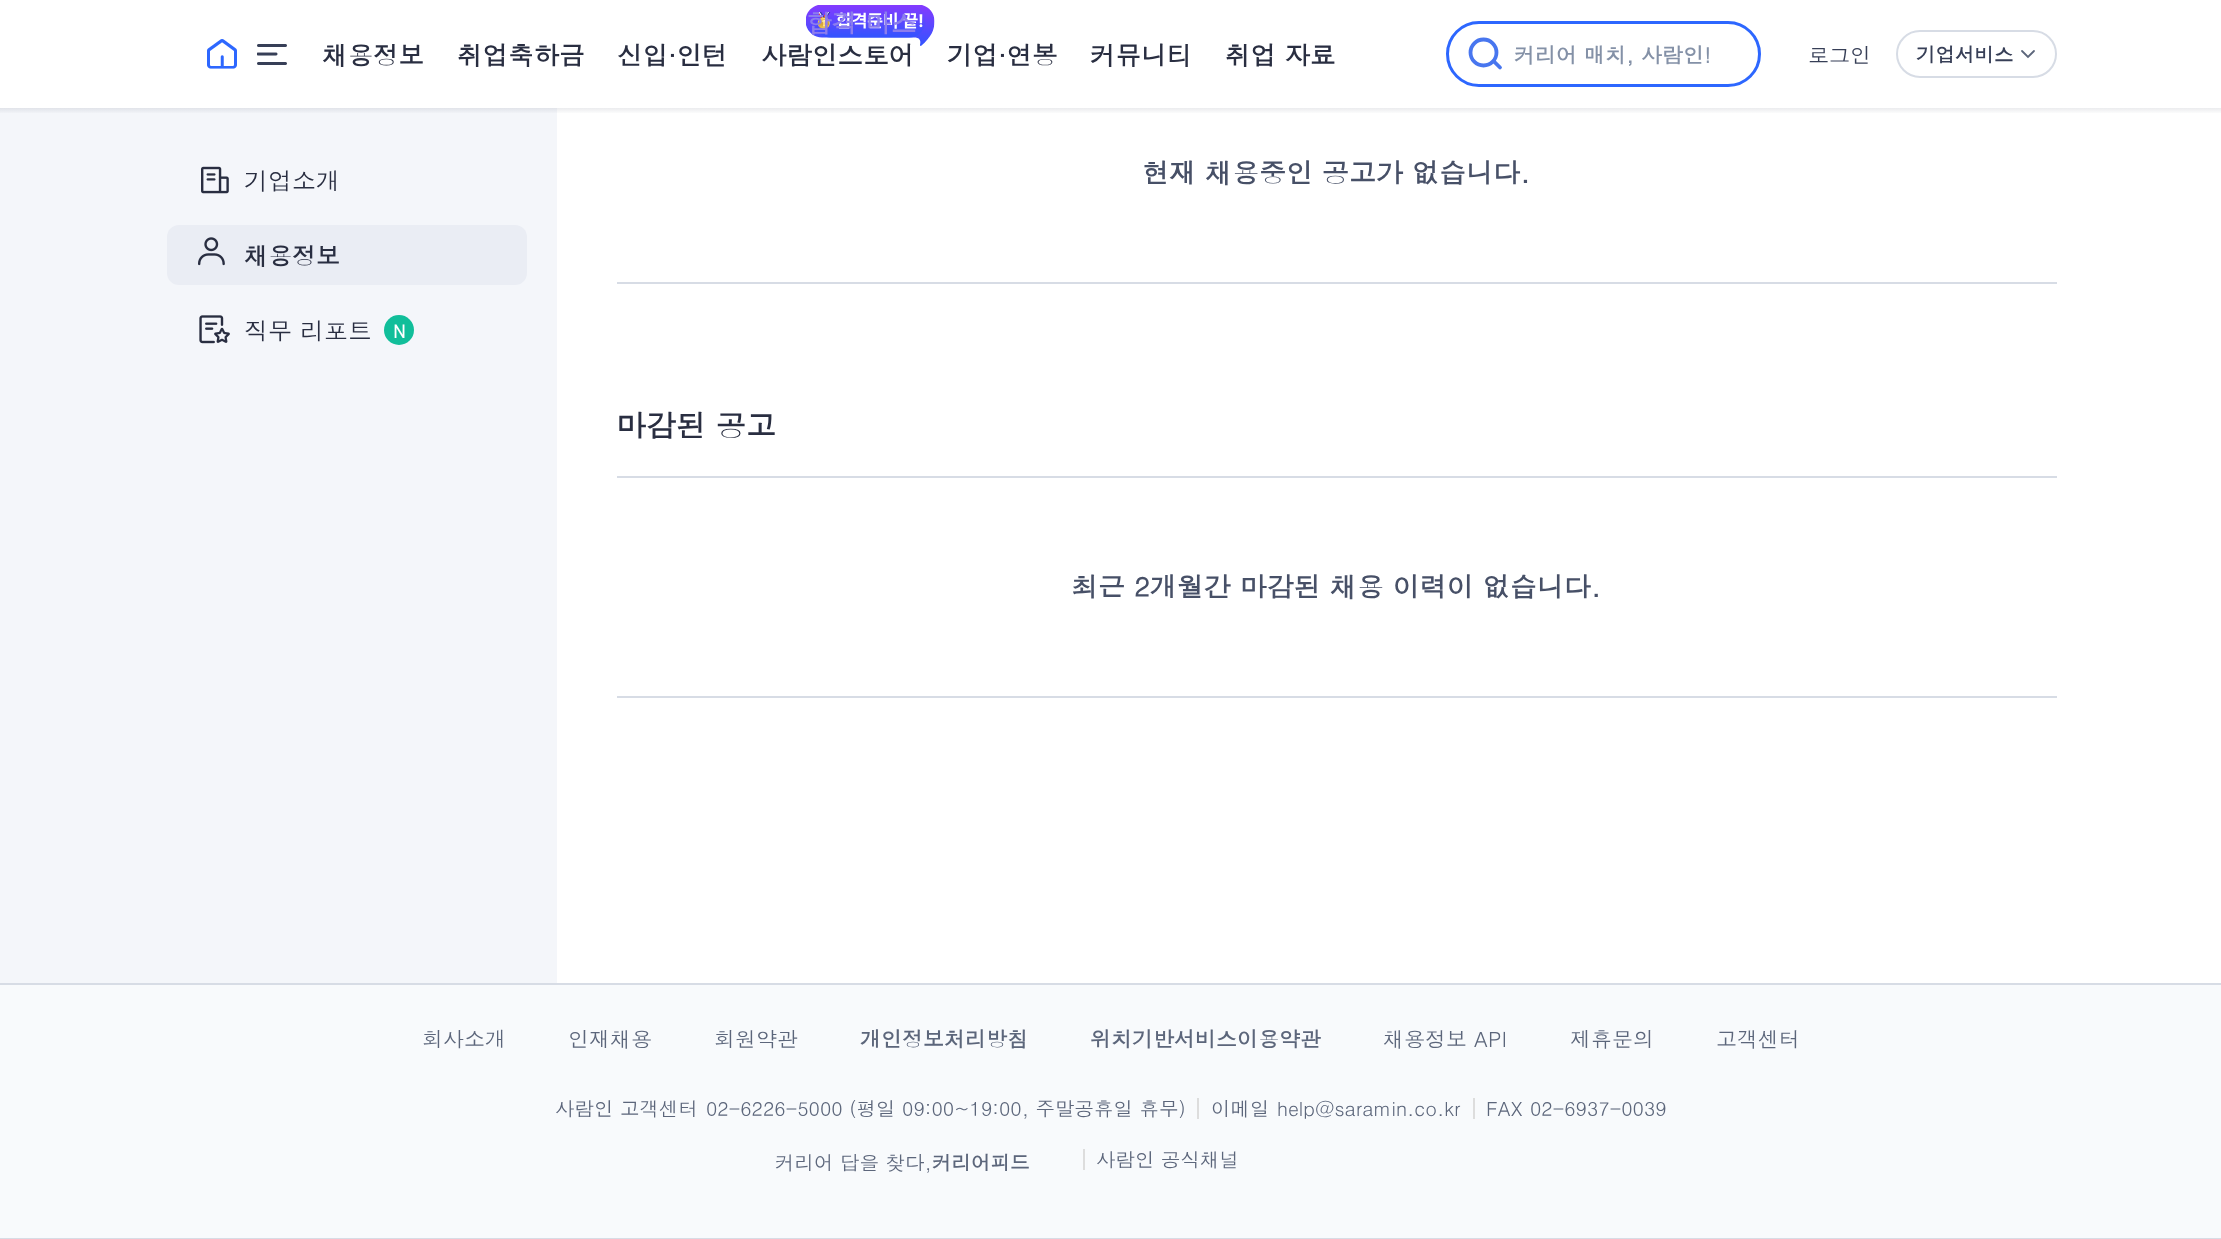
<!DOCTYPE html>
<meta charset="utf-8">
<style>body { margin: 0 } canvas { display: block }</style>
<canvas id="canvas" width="2221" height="1239"></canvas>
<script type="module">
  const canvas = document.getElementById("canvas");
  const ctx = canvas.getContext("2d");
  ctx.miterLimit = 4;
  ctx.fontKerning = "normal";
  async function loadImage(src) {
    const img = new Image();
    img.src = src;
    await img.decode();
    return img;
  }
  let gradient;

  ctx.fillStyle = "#ffffff";
  ctx.fillRect(0, 0, 2221, 1239);
  ctx.drawImage(await loadImage("img1.png"), 207, 39, 30, 30);
  ctx.drawImage(await loadImage("img2.png"), 257, 44, 30, 21);
  ctx.font = "bold 25.5px Dotum";
  ctx.fillStyle = "#292e41";
  ctx.fillText("채용정보", 322, 65);
  ctx.fillText("취업축하금", 457, 65);
  ctx.fillText("신입·인턴", 617, 65);
  ctx.drawImage(await loadImage("img3.png"), 806, 5, 129, 41);
  ctx.fillStyle = "#8c7ded";
  ctx.fillText("합격 마스", 806, 33);
  ctx.fillStyle = "#292e41";
  ctx.fillText("사람인스토어", 761, 65);
  ctx.fillText("기업·연봉", 947, 65);
  ctx.fillText("커뮤니티", 1090, 65);
  ctx.fillText("취업 자료", 1225, 65);
  ctx.beginPath();
  ctx.roundRect(1447.5, 22.5, 312, 63, 31.5);
  ctx.strokeStyle = "#2d67ff";
  ctx.lineWidth = 3;
  ctx.stroke();
  ctx.beginPath();
  ctx.arc(1483.5, 52.5, 13, 0, Math.PI * 2);
  ctx.strokeStyle = "#4876ef";
  ctx.lineWidth = 3.8;
  ctx.stroke();
  ctx.beginPath();
  ctx.moveTo(1500, 67.5);
  ctx.lineTo(1494, 61.5);
  ctx.lineCap = "round";
  ctx.stroke();
  ctx.font = "bold 21px Dotum";
  ctx.fillStyle = "#8491a7";
  ctx.fillText("커리어 매치, 사람인!", 1514, 63);
  ctx.font = "21px Dotum";
  ctx.fillStyle = "#373f57";
  ctx.fillText("로그인", 1808, 63);
  ctx.beginPath();
  ctx.roundRect(1897, 31, 159, 46, 23);
  ctx.strokeStyle = "#d7dce5";
  ctx.lineWidth = 2;
  ctx.stroke();
  ctx.font = "bold 19.5px Dotum";
  ctx.fillText("기업서비스", 1916, 62);
  ctx.beginPath();
  ctx.moveTo(2022, 51);
  ctx.lineTo(2028, 57);
  ctx.lineTo(2034, 51);
  ctx.strokeStyle = "#5c667b";
  ctx.lineWidth = 1.8;
  ctx.stroke();
  ctx.fillStyle = "#f4f6fa";
  ctx.fillRect(0, 108, 557, 875);
  gradient = ctx.createLinearGradient(1111, 114, 1111, 108);
  gradient.addColorStop(0, "rgba(55, 63, 87, 0)");
  gradient.addColorStop(1, "rgba(55, 63, 87, 0.1)");
  ctx.fillStyle = gradient;
  ctx.fillRect(0, 108, 2221, 5);
  ctx.drawImage(await loadImage("img4.png"), 201, 166, 28, 28);
  ctx.font = "24px Dotum";
  ctx.fillStyle = "#292e41";
  ctx.fillText("기업소개", 244, 190);
  ctx.fillStyle = "#eaedf4";
  ctx.beginPath();
  ctx.roundRect(167, 225, 360, 60, 12);
  ctx.fill();
  ctx.drawImage(await loadImage("img5.png"), 198, 237, 27, 29);
  ctx.font = "bold 24px Dotum";
  ctx.fillStyle = "#292e41";
  ctx.fillText("채용정보", 244, 265);
  ctx.drawImage(await loadImage("img6.png"), 199, 315, 31, 29);
  ctx.font = "24px Dotum";
  ctx.fillText("직무 리포트", 244, 340);
  ctx.fillStyle = "#11be9a";
  ctx.beginPath();
  ctx.arc(399, 330, 15, 0, Math.PI * 2);
  ctx.fill();
  ctx.font = "bold 18px Dotum";
  ctx.fillStyle = "#ffffff";
  ctx.fillText("N", 393, 338);
  ctx.fillStyle = "#d7dce5";
  ctx.fillRect(617, 282, 1440, 2);
  ctx.font = "bold 27px Dotum";
  ctx.fillStyle = "#475067";
  ctx.fillText("현재 채용중인 공고가 없습니다.", 1142, 183);
  ctx.font = "bold 30px Dotum";
  ctx.fillStyle = "#292e41";
  ctx.fillText("마감된 공고", 616, 437);
  ctx.fillStyle = "#d7dce5";
  ctx.fillRect(617, 476, 1440, 2);
  ctx.fillRect(617, 696, 1440, 2);
  ctx.font = "bold 27px Dotum";
  ctx.fillStyle = "#475067";
  ctx.fillText("최근 2개월간 마감된 채용 이력이 없습니다.", 1071, 597);
  ctx.fillStyle = "#f8fafc";
  ctx.fillRect(0, 985, 2221, 253);
  ctx.fillStyle = "#d7dce5";
  ctx.fillRect(0, 983, 2221, 2);
  ctx.fillRect(0, 1238, 2221, 1);
  ctx.font = "21px Dotum";
  ctx.fillStyle = "#5c667b";
  ctx.fillText("회사소개", 422, 1047);
  ctx.fillText("인재채용", 568, 1047);
  ctx.fillText("회원약관", 714, 1047);
  ctx.font = "bold 21px Dotum";
  ctx.fillText("개인정보처리방침", 860, 1047);
  ctx.fillText("위치기반서비스이용약관", 1090, 1047);
  ctx.font = "21px Dotum";
  ctx.fillText("채용정보 API", 1383, 1047);
  ctx.fillText("제휴문의", 1570, 1047);
  ctx.fillText("고객센터", 1716, 1047);
  ctx.font = "19.5px Dotum";
  ctx.fillText("사람인 고객센터", 555, 1116);
  ctx.fillText("02-6226-5000 (평일 09:00~19:00, 주말공휴일 휴무)", 706, 1116);
  ctx.fillStyle = "#dddddd";
  ctx.fillRect(1197, 1098, 2, 21);
  ctx.fillStyle = "#5c667b";
  ctx.fillText("이메일", 1211, 1116);
  ctx.fillText("help@saramin.co.kr", 1277, 1116);
  ctx.fillStyle = "#dddddd";
  ctx.fillRect(1473, 1098, 2, 21);
  ctx.fillStyle = "#5c667b";
  ctx.fillText("FAX", 1486, 1116);
  ctx.fillText("02-6937-0039", 1530, 1116);
  ctx.fillText("커리어 답을 찾다,", 775, 1170);
  ctx.font = "bold 19.5px Dotum";
  ctx.fillText("커리어피드", 932, 1170);
  ctx.fillStyle = "#dddddd";
  ctx.fillRect(1083, 1149, 2, 21);
  ctx.font = "19.5px Dotum";
  ctx.fillStyle = "#5c667b";
  ctx.fillText("사람인 공식채널", 1096, 1167);
</script>
